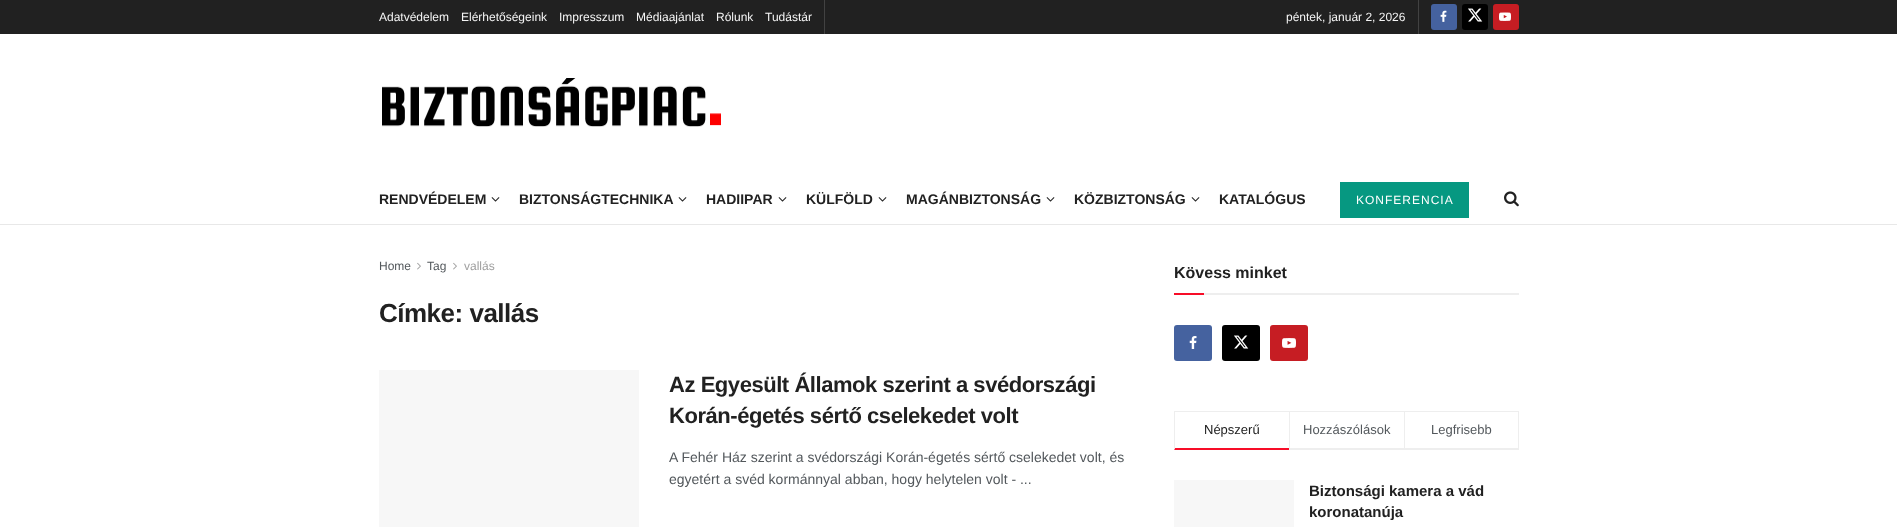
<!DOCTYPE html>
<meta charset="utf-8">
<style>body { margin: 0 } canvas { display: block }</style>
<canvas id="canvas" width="1897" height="527"></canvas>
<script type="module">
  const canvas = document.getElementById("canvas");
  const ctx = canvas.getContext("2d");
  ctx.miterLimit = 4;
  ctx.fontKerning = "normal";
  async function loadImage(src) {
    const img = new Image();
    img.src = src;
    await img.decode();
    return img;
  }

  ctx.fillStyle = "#ffffff";
  ctx.fillRect(0, 0, 1897, 527);
  ctx.fillStyle = "#212121";
  ctx.fillRect(0, 0, 1897, 34);
  ctx.fillStyle = "#424242";
  ctx.fillRect(824, 0, 1, 34);
  ctx.font = "12px Liberation Sans";
  ctx.fillStyle = "#f5f5f5";
  ctx.fillText("Adatvédelem", 379, 21);
  ctx.fillText("Elérhetőségeink", 461, 21);
  ctx.fillText("Impresszum", 559, 21);
  ctx.fillText("Médiaajánlat", 636, 21);
  ctx.fillText("Rólunk", 716, 21);
  ctx.fillText("Tudástár", 765, 21);
  ctx.fillStyle = "#424242";
  ctx.fillRect(1418, 0, 1, 34);
  ctx.fillStyle = "#f5f5f5";
  ctx.fillText("péntek, január 2, 2026", 1286, 21);
  ctx.fillStyle = "#45629f";
  ctx.beginPath();
  ctx.roundRect(1431, 4, 26, 26, 3);
  ctx.fill();
  ctx.drawImage(await loadImage("img1.png"), 1440, 10, 7, 12);
  ctx.fillStyle = "#000000";
  ctx.beginPath();
  ctx.roundRect(1462, 4, 26, 26, 3);
  ctx.fill();
  ctx.drawImage(await loadImage("img2.png"), 1468, 8, 15, 14);
  ctx.fillStyle = "#c61d23";
  ctx.beginPath();
  ctx.roundRect(1493, 4, 26, 26, 3);
  ctx.fill();
  ctx.drawImage(await loadImage("img3.png"), 1499, 12, 12, 9);
  ctx.drawImage(await loadImage("img4.png"), 382, 78, 339, 49);
  ctx.fillStyle = "#e8e8e8";
  ctx.fillRect(0, 224, 1897, 1);
  ctx.font = "bold 14px Liberation Sans";
  ctx.fillStyle = "#212121";
  ctx.fillText("RENDVÉDELEM", 379, 204);
  ctx.drawImage(await loadImage("img5.png"), 491, 197, 9, 5);
  ctx.fillText("BIZTONSÁGTECHNIKA", 519, 204);
  ctx.drawImage(await loadImage("img5.png"), 678, 197, 9, 5);
  ctx.fillText("HADIIPAR", 706, 204);
  ctx.drawImage(await loadImage("img5.png"), 778, 197, 9, 5);
  ctx.fillText("KÜLFÖLD", 806, 204);
  ctx.drawImage(await loadImage("img5.png"), 878, 197, 9, 5);
  ctx.fillText("MAGÁNBIZTONSÁG", 906, 204);
  ctx.drawImage(await loadImage("img5.png"), 1046, 197, 9, 5);
  ctx.fillText("KÖZBIZTONSÁG", 1074, 204);
  ctx.drawImage(await loadImage("img5.png"), 1191, 197, 9, 5);
  ctx.fillText("KATALÓGUS", 1219, 204);
  ctx.fillStyle = "#069881";
  ctx.fillRect(1340, 182, 129, 36);
  ctx.letterSpacing = "1px";
  ctx.font = "12px Liberation Sans";
  ctx.fillStyle = "#ffffff";
  ctx.fillText("KONFERENCIA", 1356, 204);
  ctx.drawImage(await loadImage("img6.png"), 1504, 191, 15, 16);
  ctx.letterSpacing = "0px";
  ctx.fillStyle = "#53585c";
  ctx.fillText("Home", 379, 270);
  ctx.drawImage(await loadImage("img7.png"), 417, 262, 4, 8);
  ctx.fillText("Tag", 427, 270);
  ctx.drawImage(await loadImage("img7.png"), 453, 262, 4, 8);
  ctx.fillStyle = "#a0a0a0";
  ctx.fillText("vallás", 464, 270);
  ctx.letterSpacing = "-0.5px";
  ctx.font = "bold 26px Liberation Sans";
  ctx.fillStyle = "#212121";
  ctx.fillText("Címke: vallás", 379, 322);
  ctx.fillStyle = "#f7f7f7";
  ctx.fillRect(379, 370, 260, 157);
  ctx.letterSpacing = "-0.45px";
  ctx.font = "bold 22px Liberation Sans";
  ctx.fillStyle = "#212121";
  ctx.fillText("Az Egyesült Államok szerint a svédországi", 669, 392);
  ctx.fillText("Korán-égetés sértő cselekedet volt", 669, 423);
  ctx.letterSpacing = "0px";
  ctx.font = "14px Liberation Sans";
  ctx.fillStyle = "#53585c";
  ctx.fillText("A Fehér Ház szerint a svédországi Korán-égetés sértő cselekedet volt, és", 669, 462);
  ctx.fillText("egyetért a svéd kormánnyal abban, hogy helytelen volt - ...", 669, 484);
  ctx.fillStyle = "#eeeeee";
  ctx.fillRect(1204, 293, 315, 2);
  ctx.font = "bold 16px Liberation Sans";
  ctx.fillStyle = "#212121";
  ctx.fillText("Kövess minket", 1174, 278);
  ctx.fillStyle = "#f70d28";
  ctx.fillRect(1174, 293, 30, 2);
  ctx.fillStyle = "#45629f";
  ctx.beginPath();
  ctx.roundRect(1174, 325, 38, 36, 3);
  ctx.fill();
  ctx.drawImage(await loadImage("img8.png"), 1189, 336, 8, 13);
  ctx.fillStyle = "#000000";
  ctx.beginPath();
  ctx.roundRect(1222, 325, 38, 36, 3);
  ctx.fill();
  ctx.drawImage(await loadImage("img2.png"), 1234, 335, 15, 14);
  ctx.fillStyle = "#c61d23";
  ctx.beginPath();
  ctx.roundRect(1270, 325, 38, 36, 3);
  ctx.fill();
  ctx.drawImage(await loadImage("img9.png"), 1282, 338, 14, 10);
  ctx.fillStyle = "#eeeeee";
  ctx.fillRect(1174, 411, 345, 1);
  ctx.fillStyle = "#f70d28";
  ctx.beginPath();
  ctx.moveTo(1289, 450);
  ctx.lineTo(1174, 450);
  ctx.lineTo(1175, 448);
  ctx.lineTo(1289, 448);
  ctx.closePath();
  ctx.fill();
  ctx.fillStyle = "#eeeeee";
  ctx.beginPath();
  ctx.moveTo(1174, 450);
  ctx.lineTo(1174, 411);
  ctx.lineTo(1175, 412);
  ctx.lineTo(1175, 448);
  ctx.closePath();
  ctx.fill();
  ctx.font = "13px Liberation Sans";
  ctx.fillStyle = "#212121";
  ctx.fillText("Népszerű", 1204, 434);
  ctx.fillStyle = "#eeeeee";
  ctx.fillRect(1289, 448, 115, 2);
  ctx.fillRect(1289, 411, 1, 39);
  ctx.fillStyle = "#53585c";
  ctx.fillText("Hozzászólások", 1303, 434);
  ctx.fillStyle = "#eeeeee";
  ctx.fillRect(1518, 411, 1, 39);
  ctx.fillRect(1404, 448, 115, 2);
  ctx.fillRect(1404, 411, 1, 39);
  ctx.fillStyle = "#53585c";
  ctx.fillText("Legfrisebb", 1431, 434);
  ctx.fillStyle = "#f7f7f7";
  ctx.fillRect(1174, 480, 120, 47);
  ctx.font = "bold 15px Liberation Sans";
  ctx.fillStyle = "#212121";
  ctx.fillText("Biztonsági kamera a vád", 1309, 496);
  ctx.fillText("koronatanúja", 1309, 517);
</script>
